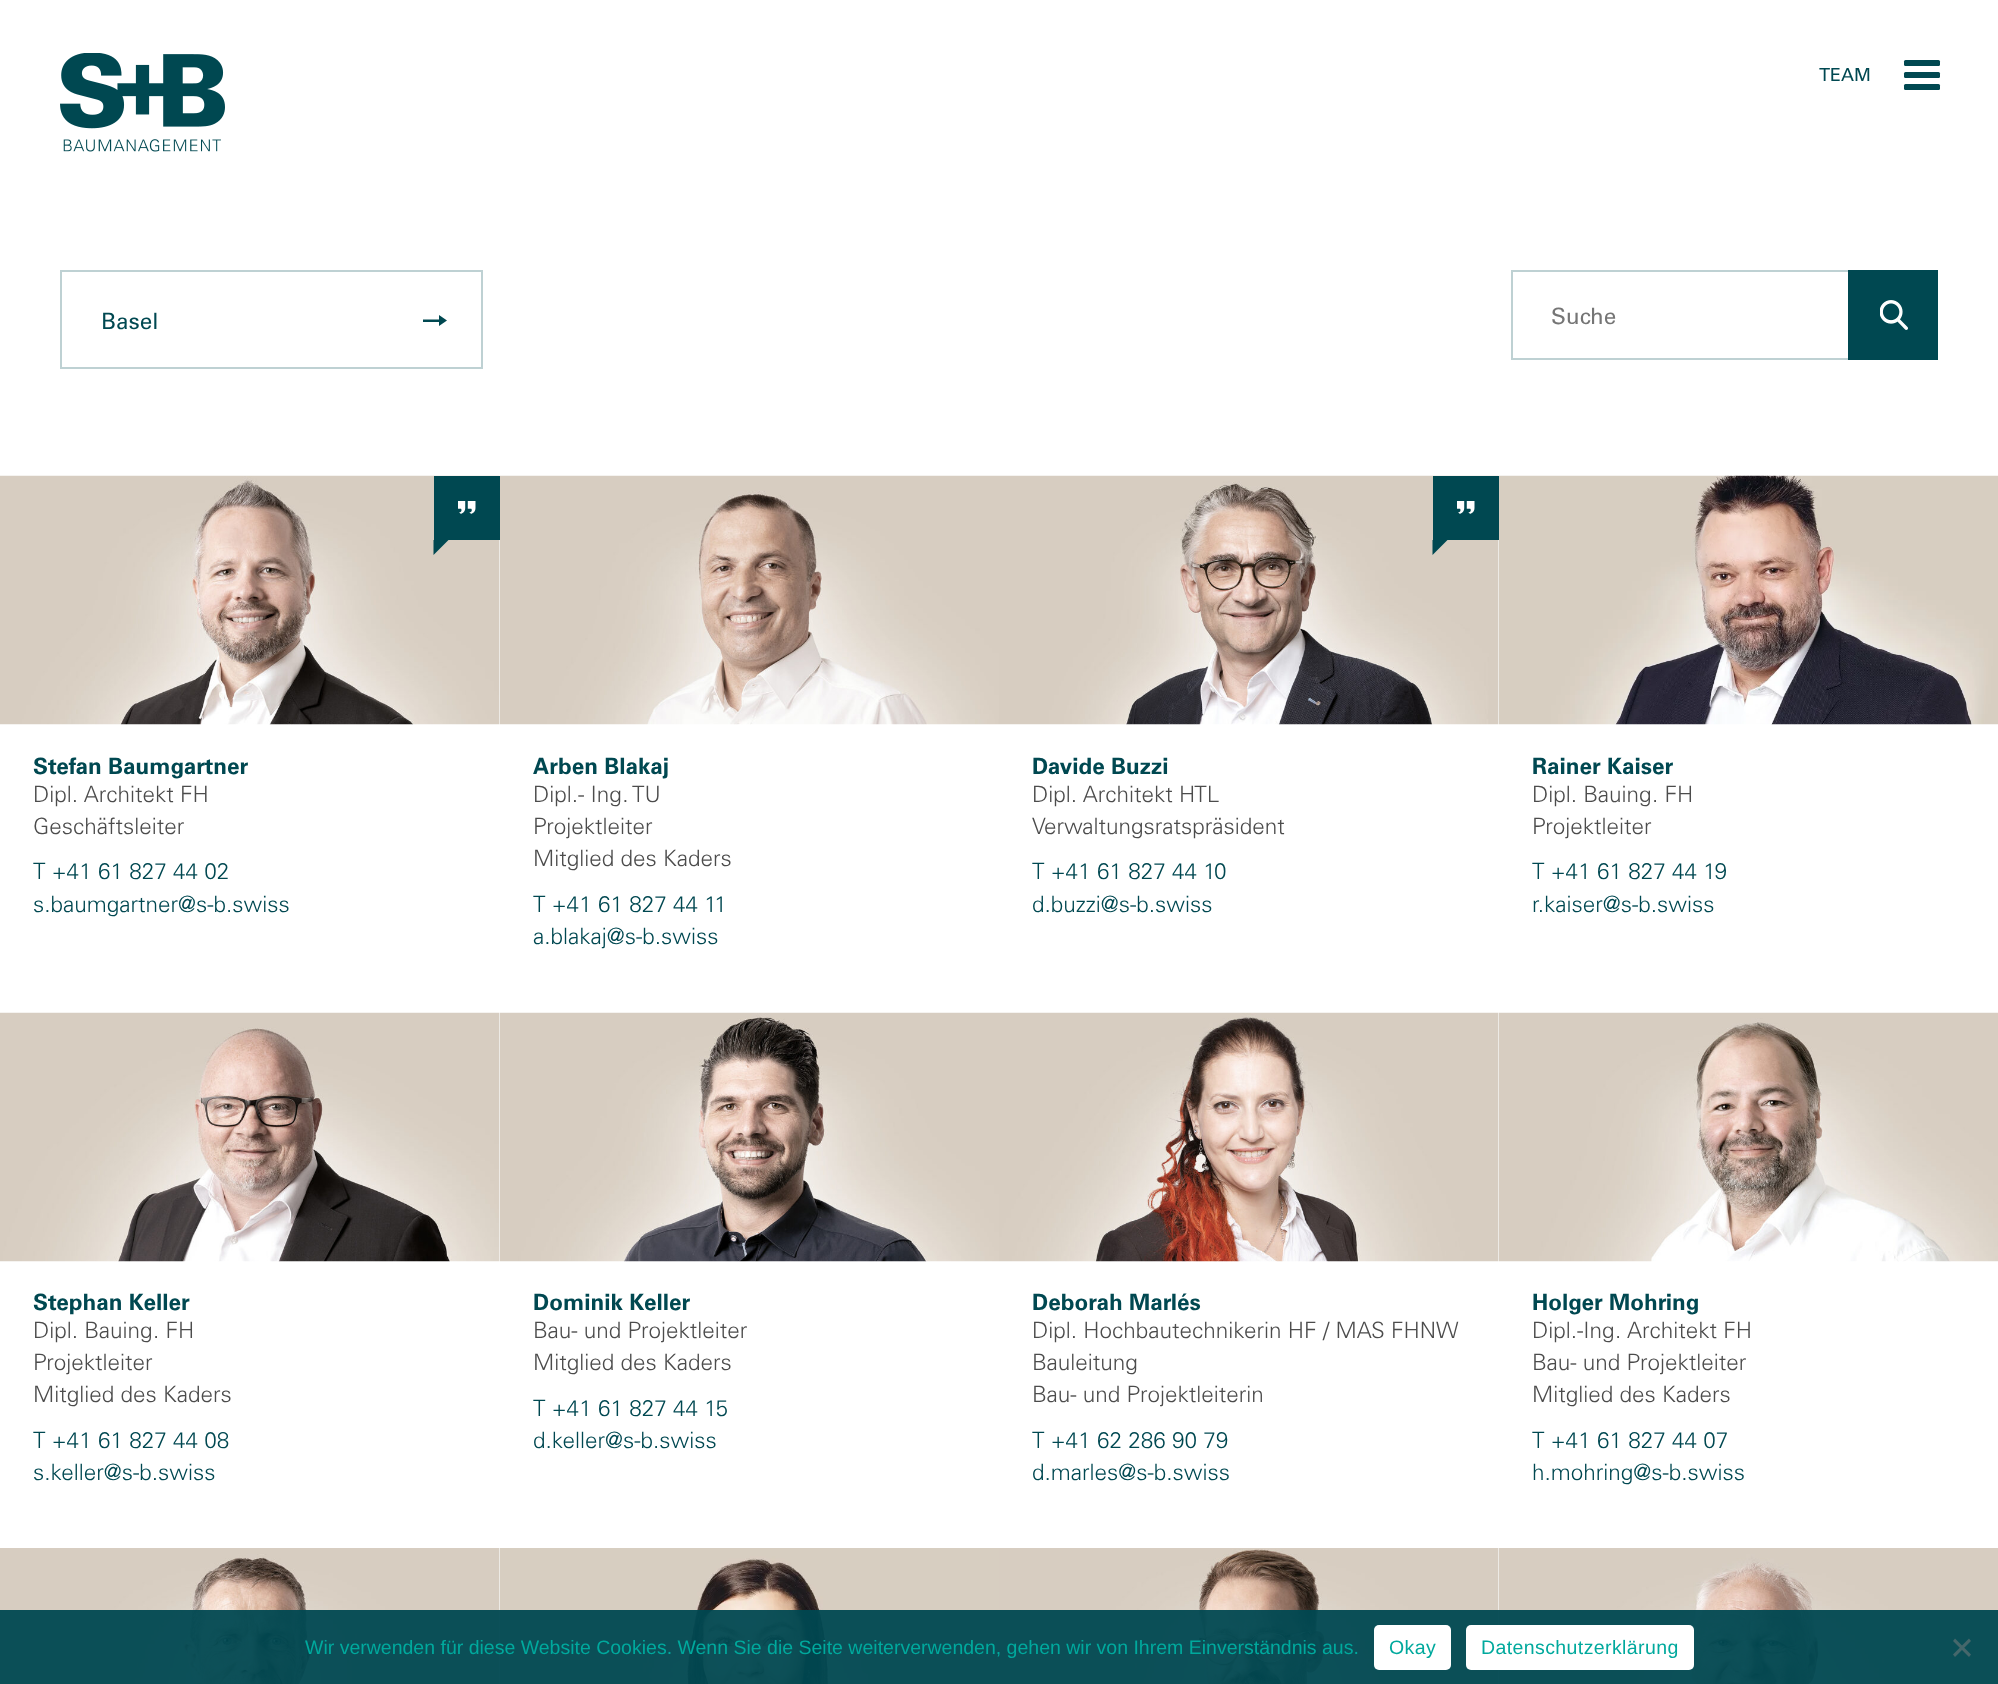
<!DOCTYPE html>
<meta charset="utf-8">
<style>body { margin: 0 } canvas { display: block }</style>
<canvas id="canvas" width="1998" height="1684"></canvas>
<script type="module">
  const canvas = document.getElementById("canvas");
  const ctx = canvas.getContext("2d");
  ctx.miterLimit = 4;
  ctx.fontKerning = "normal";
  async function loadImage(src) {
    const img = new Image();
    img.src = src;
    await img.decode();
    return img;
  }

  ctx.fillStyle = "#ffffff";
  ctx.fillRect(0, 0, 1998, 1684);
  ctx.drawImage(await loadImage("img1.png"), 60, 53, 165, 99);
  ctx.font = "18px Univers";
  ctx.fillStyle = "#004851";
  ctx.fillText("TEAM", 1819, 81);
  ctx.beginPath();
  ctx.roundRect(1904, 60, 36, 6, 1.5);
  ctx.fill();
  ctx.beginPath();
  ctx.roundRect(1904, 72, 36, 6, 1.5);
  ctx.fill();
  ctx.beginPath();
  ctx.roundRect(1904, 84, 36, 6, 1.5);
  ctx.fill();
  ctx.strokeStyle = "#bed1d3";
  ctx.lineWidth = 2;
  ctx.strokeRect(61, 271, 421, 97);
  ctx.font = "22.5px Univers";
  ctx.fillText("Basel", 101, 329);
  ctx.beginPath();
  ctx.moveTo(447, 320.5);
  ctx.lineTo(439, 315);
  ctx.lineTo(439, 319.5);
  ctx.lineTo(423, 319.5);
  ctx.lineTo(423, 322);
  ctx.lineTo(439, 322);
  ctx.lineTo(439, 326);
  ctx.closePath();
  ctx.fill();
  ctx.strokeRect(1512, 271, 337, 88);
  ctx.fillStyle = "#757575";
  ctx.fillText("Suche", 1551, 324);
  ctx.fillStyle = "#004851";
  ctx.fillRect(1848, 270, 90, 90);
  ctx.drawImage(await loadImage("img2.png"), 1880, 300, 28, 30);
  ctx.drawImage(await loadImage("img3.png"), 0, 475, 500, 250);
  ctx.drawImage(await loadImage("img5.png"), 499, 475, 500, 250);
  ctx.fillRect(434, 476, 66, 64);
  ctx.drawImage(await loadImage("img4.png"), 458, 501, 18, 13);
  ctx.beginPath();
  ctx.moveTo(433.5, 540);
  ctx.lineTo(448.5, 540);
  ctx.lineTo(433.5, 555);
  ctx.closePath();
  ctx.fill();
  ctx.font = "bold 22.5px Univers";
  ctx.fillText("Stefan Baumgartner", 33, 774);
  ctx.font = "300 22.5px Univers";
  ctx.fillStyle = "#4c4c4c";
  ctx.fillText("Dipl. Architekt FH", 33, 802);
  ctx.fillText("Geschäftsleiter", 33, 834);
  ctx.fillStyle = "#004851";
  ctx.fillText("T +41 61 827 44 02", 33, 879);
  ctx.fillText("s.baumgartner@s-b.swiss", 33, 912);
  ctx.font = "bold 22.5px Univers";
  ctx.fillText("Arben Blakaj", 533, 774);
  ctx.font = "300 22.5px Univers";
  ctx.fillStyle = "#4c4c4c";
  ctx.fillText("Dipl.- Ing. TU", 533, 802);
  ctx.fillText("Projektleiter", 533, 834);
  ctx.fillText("Mitglied des Kaders", 533, 866);
  ctx.fillStyle = "#004851";
  ctx.fillText("T +41 61 827 44 11", 533, 912);
  ctx.fillText("a.blakaj@s-b.swiss", 533, 944);
  ctx.drawImage(await loadImage("img6.png"), 999, 475, 500, 250);
  ctx.drawImage(await loadImage("img7.png"), 1498, 475, 500, 250);
  ctx.fillRect(1433, 476, 66, 64);
  ctx.drawImage(await loadImage("img4.png"), 1457, 501, 18, 13);
  ctx.beginPath();
  ctx.moveTo(1432.5, 540);
  ctx.lineTo(1447.5, 540);
  ctx.lineTo(1432.5, 555);
  ctx.closePath();
  ctx.fill();
  ctx.font = "bold 22.5px Univers";
  ctx.fillText("Davide Buzzi", 1032, 774);
  ctx.font = "300 22.5px Univers";
  ctx.fillStyle = "#4c4c4c";
  ctx.fillText("Dipl. Architekt HTL", 1032, 802);
  ctx.fillText("Verwaltungsratspräsident", 1032, 834);
  ctx.fillStyle = "#004851";
  ctx.fillText("T +41 61 827 44 10", 1032, 879);
  ctx.fillText("d.buzzi@s-b.swiss", 1032, 912);
  ctx.font = "bold 22.5px Univers";
  ctx.fillText("Rainer Kaiser", 1532, 774);
  ctx.font = "300 22.5px Univers";
  ctx.fillStyle = "#4c4c4c";
  ctx.fillText("Dipl. Bauing. FH", 1532, 802);
  ctx.fillText("Projektleiter", 1532, 834);
  ctx.fillStyle = "#004851";
  ctx.fillText("T +41 61 827 44 19", 1532, 879);
  ctx.fillText("r.kaiser@s-b.swiss", 1532, 912);
  ctx.drawImage(await loadImage("img8.png"), 0, 1012, 500, 250);
  ctx.font = "bold 22.5px Univers";
  ctx.fillText("Stephan Keller", 33, 1310);
  ctx.font = "300 22.5px Univers";
  ctx.fillStyle = "#4c4c4c";
  ctx.fillText("Dipl. Bauing. FH", 33, 1338);
  ctx.fillText("Projektleiter", 33, 1370);
  ctx.fillText("Mitglied des Kaders", 33, 1402);
  ctx.fillStyle = "#004851";
  ctx.fillText("T +41 61 827 44 08", 33, 1448);
  ctx.fillText("s.keller@s-b.swiss", 33, 1480);
  ctx.drawImage(await loadImage("img9.png"), 499, 1012, 500, 250);
  ctx.font = "bold 22.5px Univers";
  ctx.fillText("Dominik Keller", 533, 1310);
  ctx.font = "300 22.5px Univers";
  ctx.fillStyle = "#4c4c4c";
  ctx.fillText("Bau- und Projektleiter", 533, 1338);
  ctx.fillText("Mitglied des Kaders", 533, 1370);
  ctx.fillStyle = "#004851";
  ctx.fillText("T +41 61 827 44 15", 533, 1416);
  ctx.fillText("d.keller@s-b.swiss", 533, 1448);
  ctx.drawImage(await loadImage("img10.png"), 999, 1012, 500, 250);
  ctx.font = "bold 22.5px Univers";
  ctx.fillText("Deborah Marlés", 1032, 1310);
  ctx.font = "300 22.5px Univers";
  ctx.fillStyle = "#4c4c4c";
  ctx.fillText("Dipl. Hochbautechnikerin HF / MAS FHNW", 1032, 1338);
  ctx.fillText("Bauleitung", 1032, 1370);
  ctx.fillText("Bau- und Projektleiterin", 1032, 1402);
  ctx.fillStyle = "#004851";
  ctx.fillText("T +41 62 286 90 79", 1032, 1448);
  ctx.fillText("d.marles@s-b.swiss", 1032, 1480);
  ctx.drawImage(await loadImage("img11.png"), 1498, 1012, 500, 250);
  ctx.font = "bold 22.5px Univers";
  ctx.fillText("Holger Mohring", 1532, 1310);
  ctx.font = "300 22.5px Univers";
  ctx.fillStyle = "#4c4c4c";
  ctx.fillText("Dipl.-Ing. Architekt FH", 1532, 1338);
  ctx.fillText("Bau- und Projektleiter", 1532, 1370);
  ctx.fillText("Mitglied des Kaders", 1532, 1402);
  ctx.fillStyle = "#004851";
  ctx.fillText("T +41 61 827 44 07", 1532, 1448);
  ctx.fillText("h.mohring@s-b.swiss", 1532, 1480);
  ctx.drawImage(await loadImage("img12.png"), 0, 1548, 500, 136);
  ctx.drawImage(await loadImage("img13.png"), 499, 1548, 500, 136);
  ctx.drawImage(await loadImage("img14.png"), 999, 1548, 500, 136);
  ctx.drawImage(await loadImage("img15.png"), 1498, 1548, 500, 136);
  ctx.fillStyle = "rgba(0, 72, 81, 0.95)";
  ctx.fillRect(0, 1610, 1998, 74);
  ctx.font = "19.5px Liberation Sans";
  ctx.fillStyle = "#00a99d";
  ctx.fillText("Wir verwenden für diese Website Cookies. Wenn Sie die Seite weiterverwenden, gehen wir von Ihrem Einverständnis aus.", 305, 1654);
  ctx.fillStyle = "#ffffff";
  ctx.beginPath();
  ctx.roundRect(1374, 1625, 77, 45, 5);
  ctx.fill();
  ctx.letterSpacing = "0.4px";
  ctx.fillStyle = "#00a99d";
  ctx.fillText("Okay", 1389, 1654);
  ctx.fillStyle = "#ffffff";
  ctx.beginPath();
  ctx.roundRect(1466, 1625, 228, 45, 5);
  ctx.fill();
  ctx.fillStyle = "#00a99d";
  ctx.fillText("Datenschutzerklärung", 1481, 1654);
  ctx.fillStyle = "#45676b";
  ctx.beginPath();
  ctx.moveTo(1969, 1638.5);
  ctx.lineTo(1971, 1641);
  ctx.lineTo(1955, 1657);
  ctx.lineTo(1953, 1654.5);
  ctx.closePath();
  ctx.fill();
  ctx.beginPath();
  ctx.moveTo(1953, 1641);
  ctx.lineTo(1955, 1638.5);
  ctx.lineTo(1971, 1654.5);
  ctx.lineTo(1969, 1657);
  ctx.closePath();
  ctx.fill();
</script>
